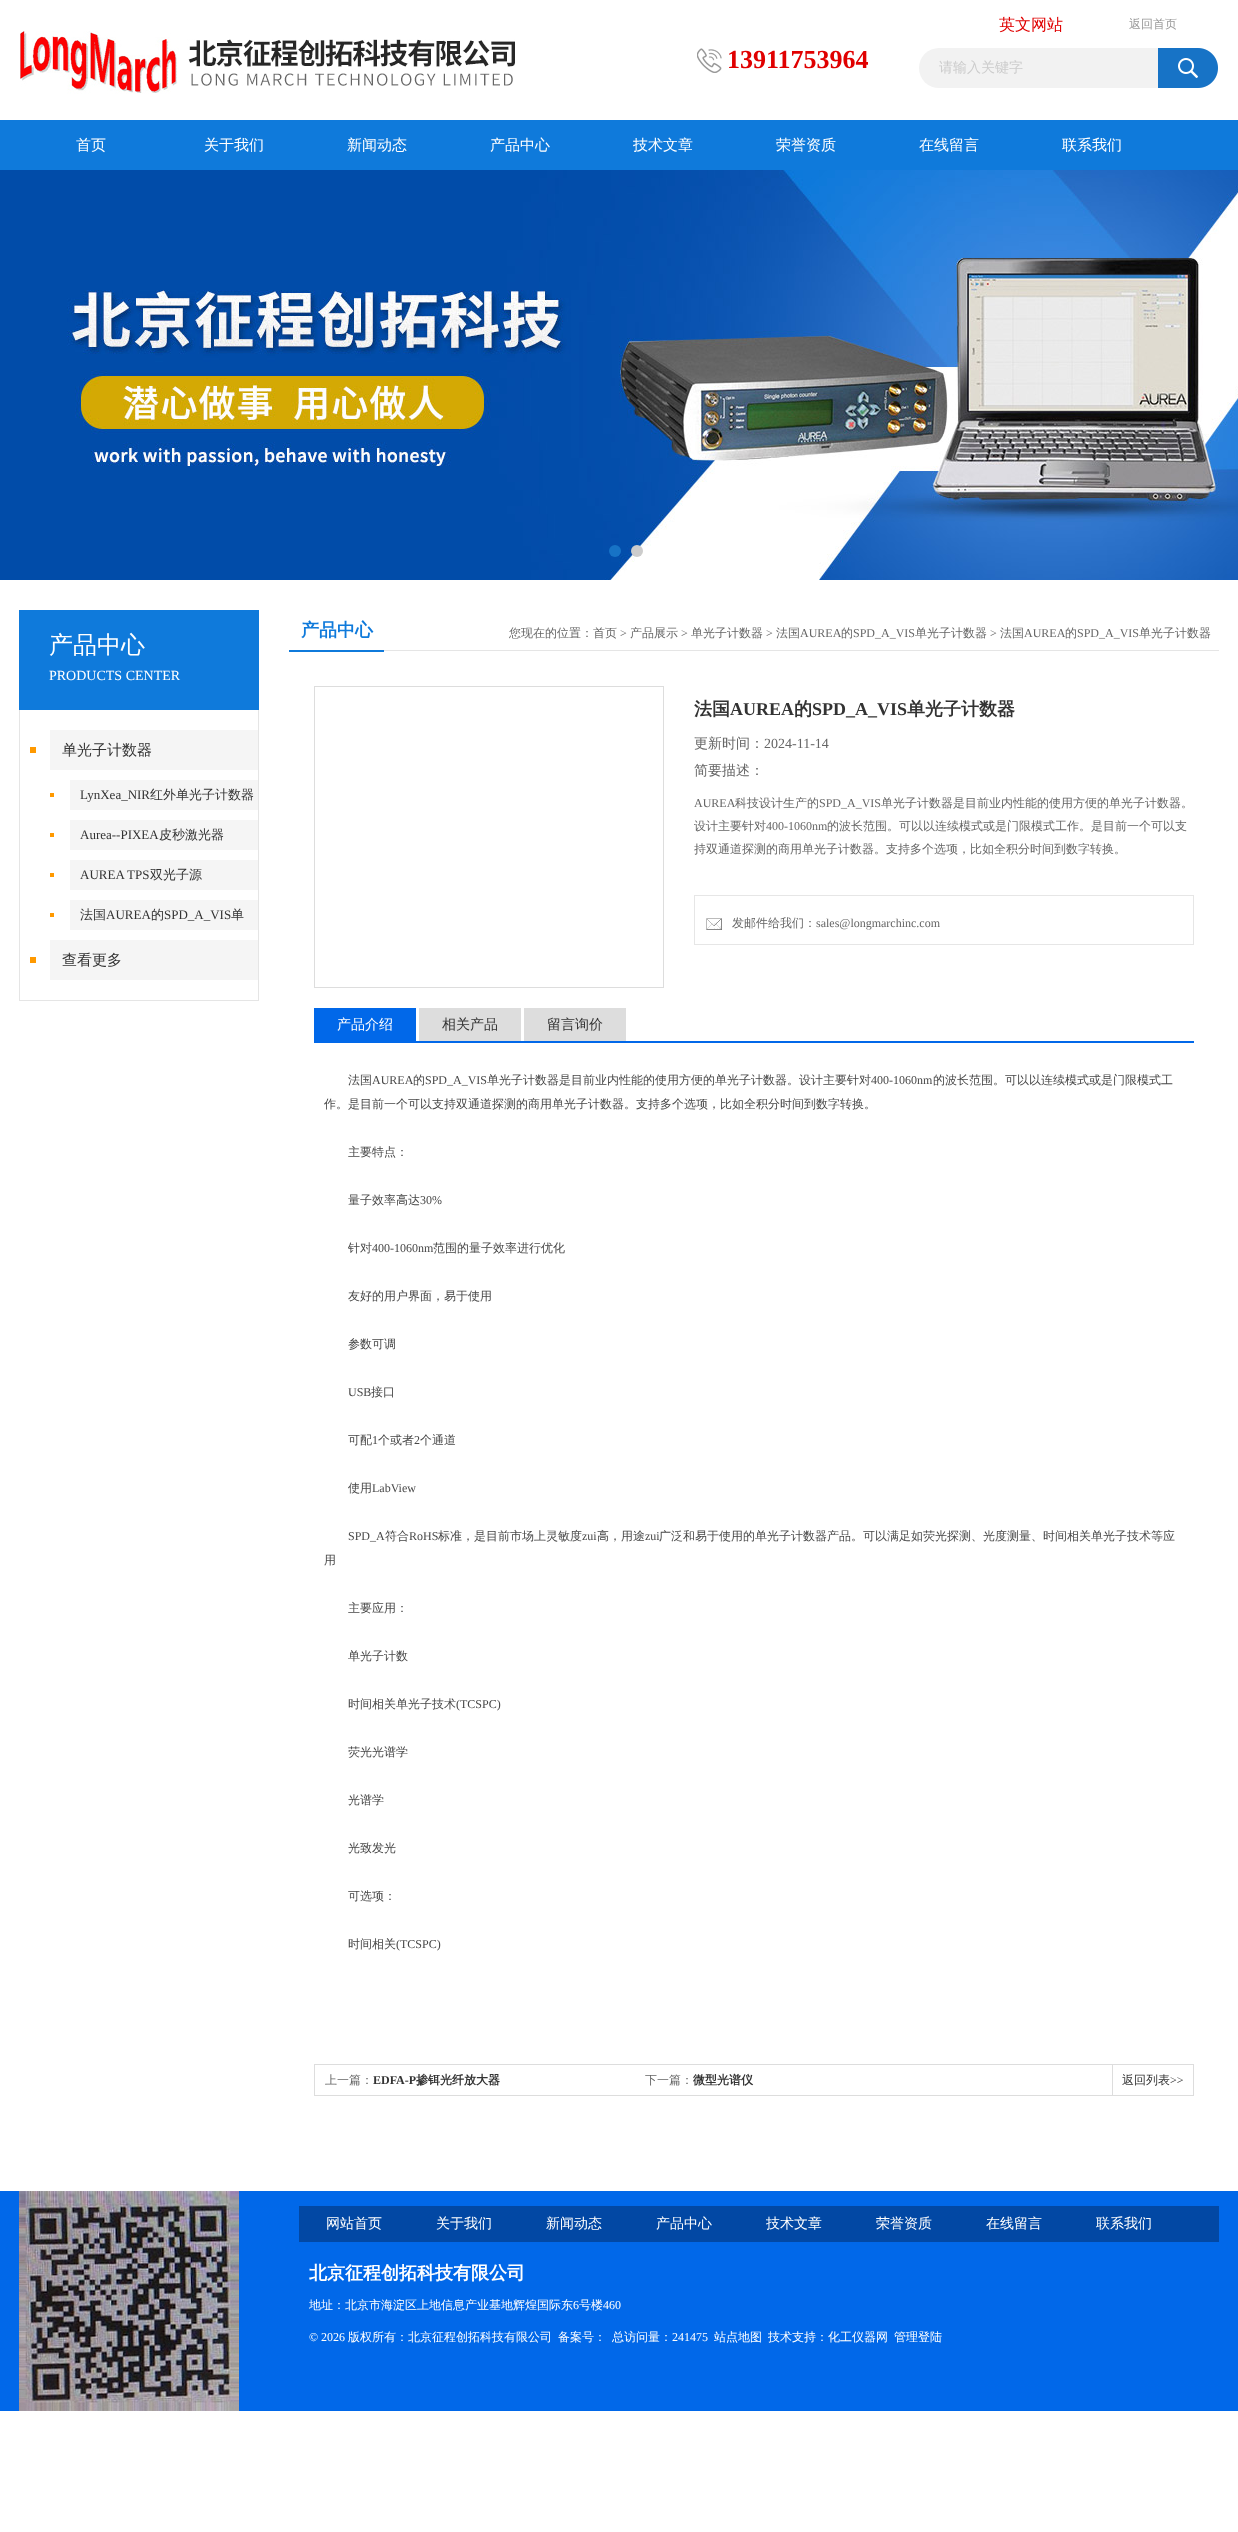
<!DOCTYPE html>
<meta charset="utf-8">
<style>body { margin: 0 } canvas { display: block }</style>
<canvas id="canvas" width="1238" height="2532"></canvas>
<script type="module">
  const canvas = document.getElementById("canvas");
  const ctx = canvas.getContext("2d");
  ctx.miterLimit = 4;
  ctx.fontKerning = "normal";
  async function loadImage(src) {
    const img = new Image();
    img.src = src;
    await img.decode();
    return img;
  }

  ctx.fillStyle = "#ffffff";
  ctx.fillRect(0, 0, 1238, 2532);
  ctx.drawImage(await loadImage("img1.png"), 20, 31, 495, 63);
  ctx.drawImage(await loadImage("img2.png"), 697, 48, 25, 25);
  ctx.font = "bold 26px Liberation Serif";
  ctx.fillStyle = "#e00000";
  ctx.fillText("13911753964", 727, 68);
  ctx.font = "500 16px WenQuanYi Zen Hei";
  ctx.fillText("英文网站", 999, 30);
  ctx.font = "500 12px WenQuanYi Zen Hei";
  ctx.fillStyle = "#999999";
  ctx.fillText("返回首页", 1129, 28);
  ctx.fillStyle = "#f2f2f2";
  ctx.beginPath();
  ctx.roundRect(919, 48, 239, 40, [20, 0, 0, 20]);
  ctx.fill();
  ctx.font = "500 14px WenQuanYi Zen Hei";
  ctx.fillStyle = "#cccccc";
  ctx.fillText("请输入关键字", 939, 72);
  ctx.drawImage(await loadImage("img3.png"), 1158, 48, 60, 40);
  ctx.fillStyle = "#0f7adb";
  ctx.fillRect(0, 120, 1238, 50);
  ctx.font = "500 15px WenQuanYi Zen Hei";
  ctx.fillStyle = "#ffffff";
  ctx.fillText("首页", 76, 150);
  ctx.fillText("关于我们", 204, 150);
  ctx.fillText("新闻动态", 347, 150);
  ctx.fillText("产品中心", 490, 150);
  ctx.fillText("技术文章", 633, 150);
  ctx.fillText("荣誉资质", 776, 150);
  ctx.fillText("在线留言", 919, 150);
  ctx.fillText("联系我们", 1062, 150);
  ctx.drawImage(await loadImage("img4.png"), 0, 170, 1238, 410);
  ctx.fillStyle = "#1773c6";
  ctx.beginPath();
  ctx.arc(615, 551, 6, 0, Math.PI * 2);
  ctx.fill();
  ctx.fillStyle = "#cccccc";
  ctx.beginPath();
  ctx.arc(637, 551, 6, 0, Math.PI * 2);
  ctx.fill();
  ctx.fillStyle = "#0f7adb";
  ctx.fillRect(19, 610, 240, 100);
  ctx.font = "500 24px WenQuanYi Zen Hei";
  ctx.fillStyle = "#ffffff";
  ctx.fillText("产品中心", 49, 653);
  ctx.font = "14px Liberation Serif";
  ctx.fillText("PRODUCTS CENTER", 49, 680);
  ctx.fillStyle = "#e5e5e5";
  ctx.fillRect(258, 710, 1, 291);
  ctx.fillRect(19, 1000, 240, 1);
  ctx.fillRect(19, 710, 1, 291);
  ctx.fillStyle = "#ff9900";
  ctx.fillRect(30, 747, 6, 6);
  ctx.fillStyle = "#f5f5f5";
  ctx.fillRect(50, 730, 208, 40);
  ctx.font = "500 15px WenQuanYi Zen Hei";
  ctx.fillStyle = "#333333";
  ctx.fillText("单光子计数器", 62, 755);
  ctx.fillStyle = "#ff9900";
  ctx.fillRect(50, 793, 4, 4);
  ctx.fillStyle = "#f5f5f5";
  ctx.fillRect(70, 780, 188, 30);
  ctx.font = "13px Liberation Serif";
  ctx.fillStyle = "#333333";
  ctx.fillText("LynXea_NIR", 80, 799);
  ctx.font = "500 13px WenQuanYi Zen Hei";
  ctx.fillText("红外单光子计数器", 150, 799);
  ctx.fillStyle = "#ff9900";
  ctx.fillRect(50, 833, 4, 4);
  ctx.fillStyle = "#f5f5f5";
  ctx.fillRect(70, 820, 188, 30);
  ctx.font = "13px Liberation Serif";
  ctx.fillStyle = "#333333";
  ctx.fillText("Aurea--PIXEA", 80, 839);
  ctx.font = "500 13px WenQuanYi Zen Hei";
  ctx.fillText("皮秒激光器", 159, 839);
  ctx.fillStyle = "#ff9900";
  ctx.fillRect(50, 873, 4, 4);
  ctx.fillStyle = "#f5f5f5";
  ctx.fillRect(70, 860, 188, 30);
  ctx.font = "13px Liberation Serif";
  ctx.fillStyle = "#333333";
  ctx.fillText("AUREA TPS", 80, 879);
  ctx.font = "500 13px WenQuanYi Zen Hei";
  ctx.fillText("双光子源", 150, 879);
  ctx.fillStyle = "#ff9900";
  ctx.fillRect(50, 913, 4, 4);
  ctx.fillStyle = "#f5f5f5";
  ctx.fillRect(70, 900, 188, 30);
  ctx.fillStyle = "#333333";
  ctx.fillText("法国", 80, 919);
  ctx.font = "13px Liberation Serif";
  ctx.fillText("AUREA", 106, 919);
  ctx.font = "500 13px WenQuanYi Zen Hei";
  ctx.fillText("的", 151, 919);
  ctx.font = "13px Liberation Serif";
  ctx.fillText("SPD_A_VIS", 164, 919);
  ctx.font = "500 13px WenQuanYi Zen Hei";
  ctx.fillText("单", 231, 919);
  ctx.fillStyle = "#ff9900";
  ctx.fillRect(30, 957, 6, 6);
  ctx.fillStyle = "#f5f5f5";
  ctx.fillRect(50, 940, 208, 40);
  ctx.font = "500 15px WenQuanYi Zen Hei";
  ctx.fillStyle = "#333333";
  ctx.fillText("查看更多", 62, 965);
  ctx.fillStyle = "#e5e5e5";
  ctx.fillRect(384, 650, 835, 1);
  ctx.fillStyle = "#0f7adb";
  ctx.fillRect(289, 650, 95, 2);
  ctx.font = "bold 18px WenQuanYi Zen Hei";
  ctx.fillText("产品中心", 301, 636);
  ctx.font = "500 12px WenQuanYi Zen Hei";
  ctx.fillStyle = "#666666";
  ctx.fillText("您现在的位置：首页", 509, 637);
  ctx.font = "12px Liberation Serif";
  ctx.fillText(">", 620, 637);
  ctx.font = "500 12px WenQuanYi Zen Hei";
  ctx.fillText("产品展示", 630, 637);
  ctx.font = "12px Liberation Serif";
  ctx.fillText(">", 681, 637);
  ctx.font = "500 12px WenQuanYi Zen Hei";
  ctx.fillText("单光子计数器", 691, 637);
  ctx.font = "12px Liberation Serif";
  ctx.fillText(">", 766, 637);
  ctx.font = "500 12px WenQuanYi Zen Hei";
  ctx.fillText("法国", 776, 637);
  ctx.font = "12px Liberation Serif";
  ctx.fillText("AUREA", 800, 637);
  ctx.font = "500 12px WenQuanYi Zen Hei";
  ctx.fillText("的", 841, 637);
  ctx.font = "12px Liberation Serif";
  ctx.fillText("SPD_A_VIS", 853, 637);
  ctx.font = "500 12px WenQuanYi Zen Hei";
  ctx.fillText("单光子计数器", 915, 637);
  ctx.font = "12px Liberation Serif";
  ctx.fillText(">", 990, 637);
  ctx.font = "500 12px WenQuanYi Zen Hei";
  ctx.fillText("法国", 1000, 637);
  ctx.font = "12px Liberation Serif";
  ctx.fillText("AUREA", 1024, 637);
  ctx.font = "500 12px WenQuanYi Zen Hei";
  ctx.fillText("的", 1065, 637);
  ctx.font = "12px Liberation Serif";
  ctx.fillText("SPD_A_VIS", 1077, 637);
  ctx.font = "500 12px WenQuanYi Zen Hei";
  ctx.fillText("单光子计数器", 1139, 637);
  ctx.strokeStyle = "#dddddd";
  ctx.strokeRect(314.5, 686.5, 349, 301);
  ctx.font = "bold 18px WenQuanYi Zen Hei";
  ctx.fillStyle = "#333333";
  ctx.fillText("法国", 694, 715);
  ctx.font = "bold 18px Liberation Serif";
  ctx.fillText("AUREA", 730, 715);
  ctx.font = "bold 18px WenQuanYi Zen Hei";
  ctx.fillText("的", 794, 715);
  ctx.font = "bold 18px Liberation Serif";
  ctx.fillText("SPD_A_VIS", 812, 715);
  ctx.font = "bold 18px WenQuanYi Zen Hei";
  ctx.fillText("单光子计数器", 907, 715);
  ctx.font = "500 14px WenQuanYi Zen Hei";
  ctx.fillStyle = "#666666";
  ctx.fillText("更新时间：", 694, 748);
  ctx.font = "14px Liberation Serif";
  ctx.fillText("2024-11-14", 764, 748);
  ctx.font = "500 14px WenQuanYi Zen Hei";
  ctx.fillText("简要描述：", 694, 775);
  ctx.font = "12px Liberation Serif";
  ctx.fillText("AUREA", 694, 807);
  ctx.font = "500 12px WenQuanYi Zen Hei";
  ctx.fillText("科技设计生产的", 735, 807);
  ctx.font = "12px Liberation Serif";
  ctx.fillText("SPD_A_VIS", 819, 807);
  ctx.font = "500 12px WenQuanYi Zen Hei";
  ctx.fillText("单光子计数器是目前业内性能的使用方便的单光子计数器。", 881, 807);
  ctx.fillText("设计主要针对", 694, 830);
  ctx.font = "12px Liberation Serif";
  ctx.fillText("400-1060nm", 766, 830);
  ctx.font = "500 12px WenQuanYi Zen Hei";
  ctx.fillText("的波长范围。可以以连续模式或是门限模式工作。是目前一个可以支", 827, 830);
  ctx.fillText("持双通道探测的商用单光子计数器。支持多个选项，比如全积分时间到数字转换。", 694, 853);
  ctx.strokeStyle = "#e6e6e6";
  ctx.strokeRect(694.5, 895.5, 499, 49);
  ctx.drawImage(await loadImage("img5.png"), 706, 918, 16, 12);
  ctx.fillText("发邮件给我们：", 732, 927);
  ctx.font = "12px Liberation Serif";
  ctx.fillText("sales@longmarchinc.com", 816, 927);
  ctx.fillStyle = "#0168e9";
  ctx.fillRect(314, 1041, 880, 2);
  ctx.fillRect(314, 1008, 102, 33);
  ctx.font = "500 14px WenQuanYi Zen Hei";
  ctx.fillStyle = "#ffffff";
  ctx.fillText("产品介绍", 337, 1029);
  ctx.fillStyle = "#dddddd";
  ctx.fillRect(419, 1008, 102, 33);
  ctx.fillStyle = "#333333";
  ctx.fillText("相关产品", 442, 1029);
  ctx.fillStyle = "#dddddd";
  ctx.fillRect(524, 1008, 102, 33);
  ctx.fillStyle = "#333333";
  ctx.fillText("留言询价", 547, 1029);
  ctx.font = "500 12px WenQuanYi Zen Hei";
  ctx.fillStyle = "#474747";
  ctx.fillText("法国", 348, 1084);
  ctx.font = "12px Liberation Serif";
  ctx.fillText("AUREA", 372, 1084);
  ctx.font = "500 12px WenQuanYi Zen Hei";
  ctx.fillText("的", 413, 1084);
  ctx.font = "12px Liberation Serif";
  ctx.fillText("SPD_A_VIS", 425, 1084);
  ctx.font = "500 12px WenQuanYi Zen Hei";
  ctx.fillText("单光子计数器是目前业内性能的使用方便的单光子计数器。设计主要针对", 487, 1084);
  ctx.font = "12px Liberation Serif";
  ctx.fillText("400-1060nm", 871, 1084);
  ctx.font = "500 12px WenQuanYi Zen Hei";
  ctx.fillText("的波长范围。可以以连续模式或是门限模式工", 933, 1084);
  ctx.fillText("作。是目前一个可以支持双通道探测的商用单光子计数器。支持多个选项，比如全积分时间到数字转换。", 324, 1108);
  ctx.fillText("主要特点：", 348, 1156);
  ctx.fillText("量子效率高达", 348, 1204);
  ctx.font = "12px Liberation Serif";
  ctx.fillText("30%", 420, 1204);
  ctx.font = "500 12px WenQuanYi Zen Hei";
  ctx.fillText("针对", 348, 1252);
  ctx.font = "12px Liberation Serif";
  ctx.fillText("400-1060nm", 372, 1252);
  ctx.font = "500 12px WenQuanYi Zen Hei";
  ctx.fillText("范围的量子效率进行优化", 433, 1252);
  ctx.fillText("友好的用户界面，易于使用", 348, 1300);
  ctx.fillText("参数可调", 348, 1348);
  ctx.font = "12px Liberation Serif";
  ctx.fillText("USB", 348, 1396);
  ctx.font = "500 12px WenQuanYi Zen Hei";
  ctx.fillText("接口", 371, 1396);
  ctx.fillText("可配", 348, 1444);
  ctx.font = "12px Liberation Serif";
  ctx.fillText("1", 372, 1444);
  ctx.font = "500 12px WenQuanYi Zen Hei";
  ctx.fillText("个或者", 378, 1444);
  ctx.font = "12px Liberation Serif";
  ctx.fillText("2", 414, 1444);
  ctx.font = "500 12px WenQuanYi Zen Hei";
  ctx.fillText("个通道", 420, 1444);
  ctx.fillText("使用", 348, 1492);
  ctx.font = "12px Liberation Serif";
  ctx.fillText("LabView", 372, 1492);
  ctx.fillText("SPD_A", 348, 1540);
  ctx.font = "500 12px WenQuanYi Zen Hei";
  ctx.fillText("符合", 385, 1540);
  ctx.font = "12px Liberation Serif";
  ctx.fillText("RoHS", 409, 1540);
  ctx.font = "500 12px WenQuanYi Zen Hei";
  ctx.fillText("标准，是目前市场上灵敏度", 438, 1540);
  ctx.font = "12px Liberation Serif";
  ctx.fillText("zui", 582, 1540);
  ctx.font = "500 12px WenQuanYi Zen Hei";
  ctx.fillText("高，用途", 597, 1540);
  ctx.font = "12px Liberation Serif";
  ctx.fillText("zui", 645, 1540);
  ctx.font = "500 12px WenQuanYi Zen Hei";
  ctx.fillText("广泛和易于使用的单光子计数器产品。可以满足如荧光探测、光度测量、时间相关单光子技术等应", 659, 1540);
  ctx.fillText("用", 324, 1564);
  ctx.fillText("主要应用：", 348, 1612);
  ctx.fillText("单光子计数", 348, 1660);
  ctx.fillText("时间相关单光子技术", 348, 1708);
  ctx.font = "12px Liberation Serif";
  ctx.fillText("(TCSPC)", 456, 1708);
  ctx.font = "500 12px WenQuanYi Zen Hei";
  ctx.fillText("荧光光谱学", 348, 1756);
  ctx.fillText("光谱学", 348, 1804);
  ctx.fillText("光致发光", 348, 1852);
  ctx.fillText("可选项：", 348, 1900);
  ctx.fillText("时间相关", 348, 1948);
  ctx.font = "12px Liberation Serif";
  ctx.fillText("(TCSPC)", 396, 1948);
  ctx.strokeStyle = "#dddddd";
  ctx.strokeRect(314.5, 2064.5, 879, 31);
  ctx.font = "500 12px WenQuanYi Zen Hei";
  ctx.fillStyle = "#666666";
  ctx.fillText("上一篇：", 325, 2084);
  ctx.font = "bold 12px Liberation Serif";
  ctx.fillStyle = "#333333";
  ctx.fillText("EDFA-P", 373, 2084);
  ctx.font = "bold 12px WenQuanYi Zen Hei";
  ctx.fillText("掺铒光纤放大器", 416, 2084);
  ctx.font = "500 12px WenQuanYi Zen Hei";
  ctx.fillStyle = "#666666";
  ctx.fillText("下一篇：", 645, 2084);
  ctx.font = "bold 12px WenQuanYi Zen Hei";
  ctx.fillStyle = "#333333";
  ctx.fillText("微型光谱仪", 693, 2084);
  ctx.fillStyle = "#dddddd";
  ctx.fillRect(1112, 2065, 1, 30);
  ctx.font = "500 12px WenQuanYi Zen Hei";
  ctx.fillStyle = "#333333";
  ctx.fillText("返回列表", 1122, 2084);
  ctx.font = "12px Liberation Serif";
  ctx.fillText(">>", 1170, 2084);
  ctx.fillStyle = "#0168e9";
  ctx.fillRect(0, 2191, 1238, 220);
  ctx.drawImage(await loadImage("img6.png"), 19, 2191, 220, 220);
  ctx.fillStyle = "#0248a4";
  ctx.fillRect(299, 2206, 920, 36);
  ctx.font = "500 14px WenQuanYi Zen Hei";
  ctx.fillStyle = "#ffffff";
  ctx.fillText("网站首页", 326, 2228);
  ctx.fillText("关于我们", 436, 2228);
  ctx.fillText("新闻动态", 546, 2228);
  ctx.fillText("产品中心", 656, 2228);
  ctx.fillText("技术文章", 766, 2228);
  ctx.fillText("荣誉资质", 876, 2228);
  ctx.fillText("在线留言", 986, 2228);
  ctx.fillText("联系我们", 1096, 2228);
  ctx.font = "bold 18px WenQuanYi Zen Hei";
  ctx.fillText("北京征程创拓科技有限公司", 309, 2279);
  ctx.font = "500 12px WenQuanYi Zen Hei";
  ctx.fillText("地址：北京市海淀区上地信息产业基地辉煌国际东", 309, 2309);
  ctx.font = "12px Liberation Serif";
  ctx.fillText("6", 573, 2309);
  ctx.font = "500 12px WenQuanYi Zen Hei";
  ctx.fillText("号楼", 579, 2309);
  ctx.font = "12px Liberation Serif";
  ctx.fillText("460", 603, 2309);
  ctx.fillText("© 2026", 309, 2341);
  ctx.font = "500 12px WenQuanYi Zen Hei";
  ctx.fillText("版权所有：北京征程创拓科技有限公司", 348, 2341);
  ctx.fillText("备案号：", 558, 2341);
  ctx.fillText("总访问量：", 612, 2341);
  ctx.font = "12px Liberation Serif";
  ctx.fillText("241475", 672, 2341);
  ctx.font = "500 12px WenQuanYi Zen Hei";
  ctx.fillText("站点地图", 714, 2341);
  ctx.fillText("技术支持：化工仪器网", 768, 2341);
  ctx.fillText("管理登陆", 894, 2341);
</script>
